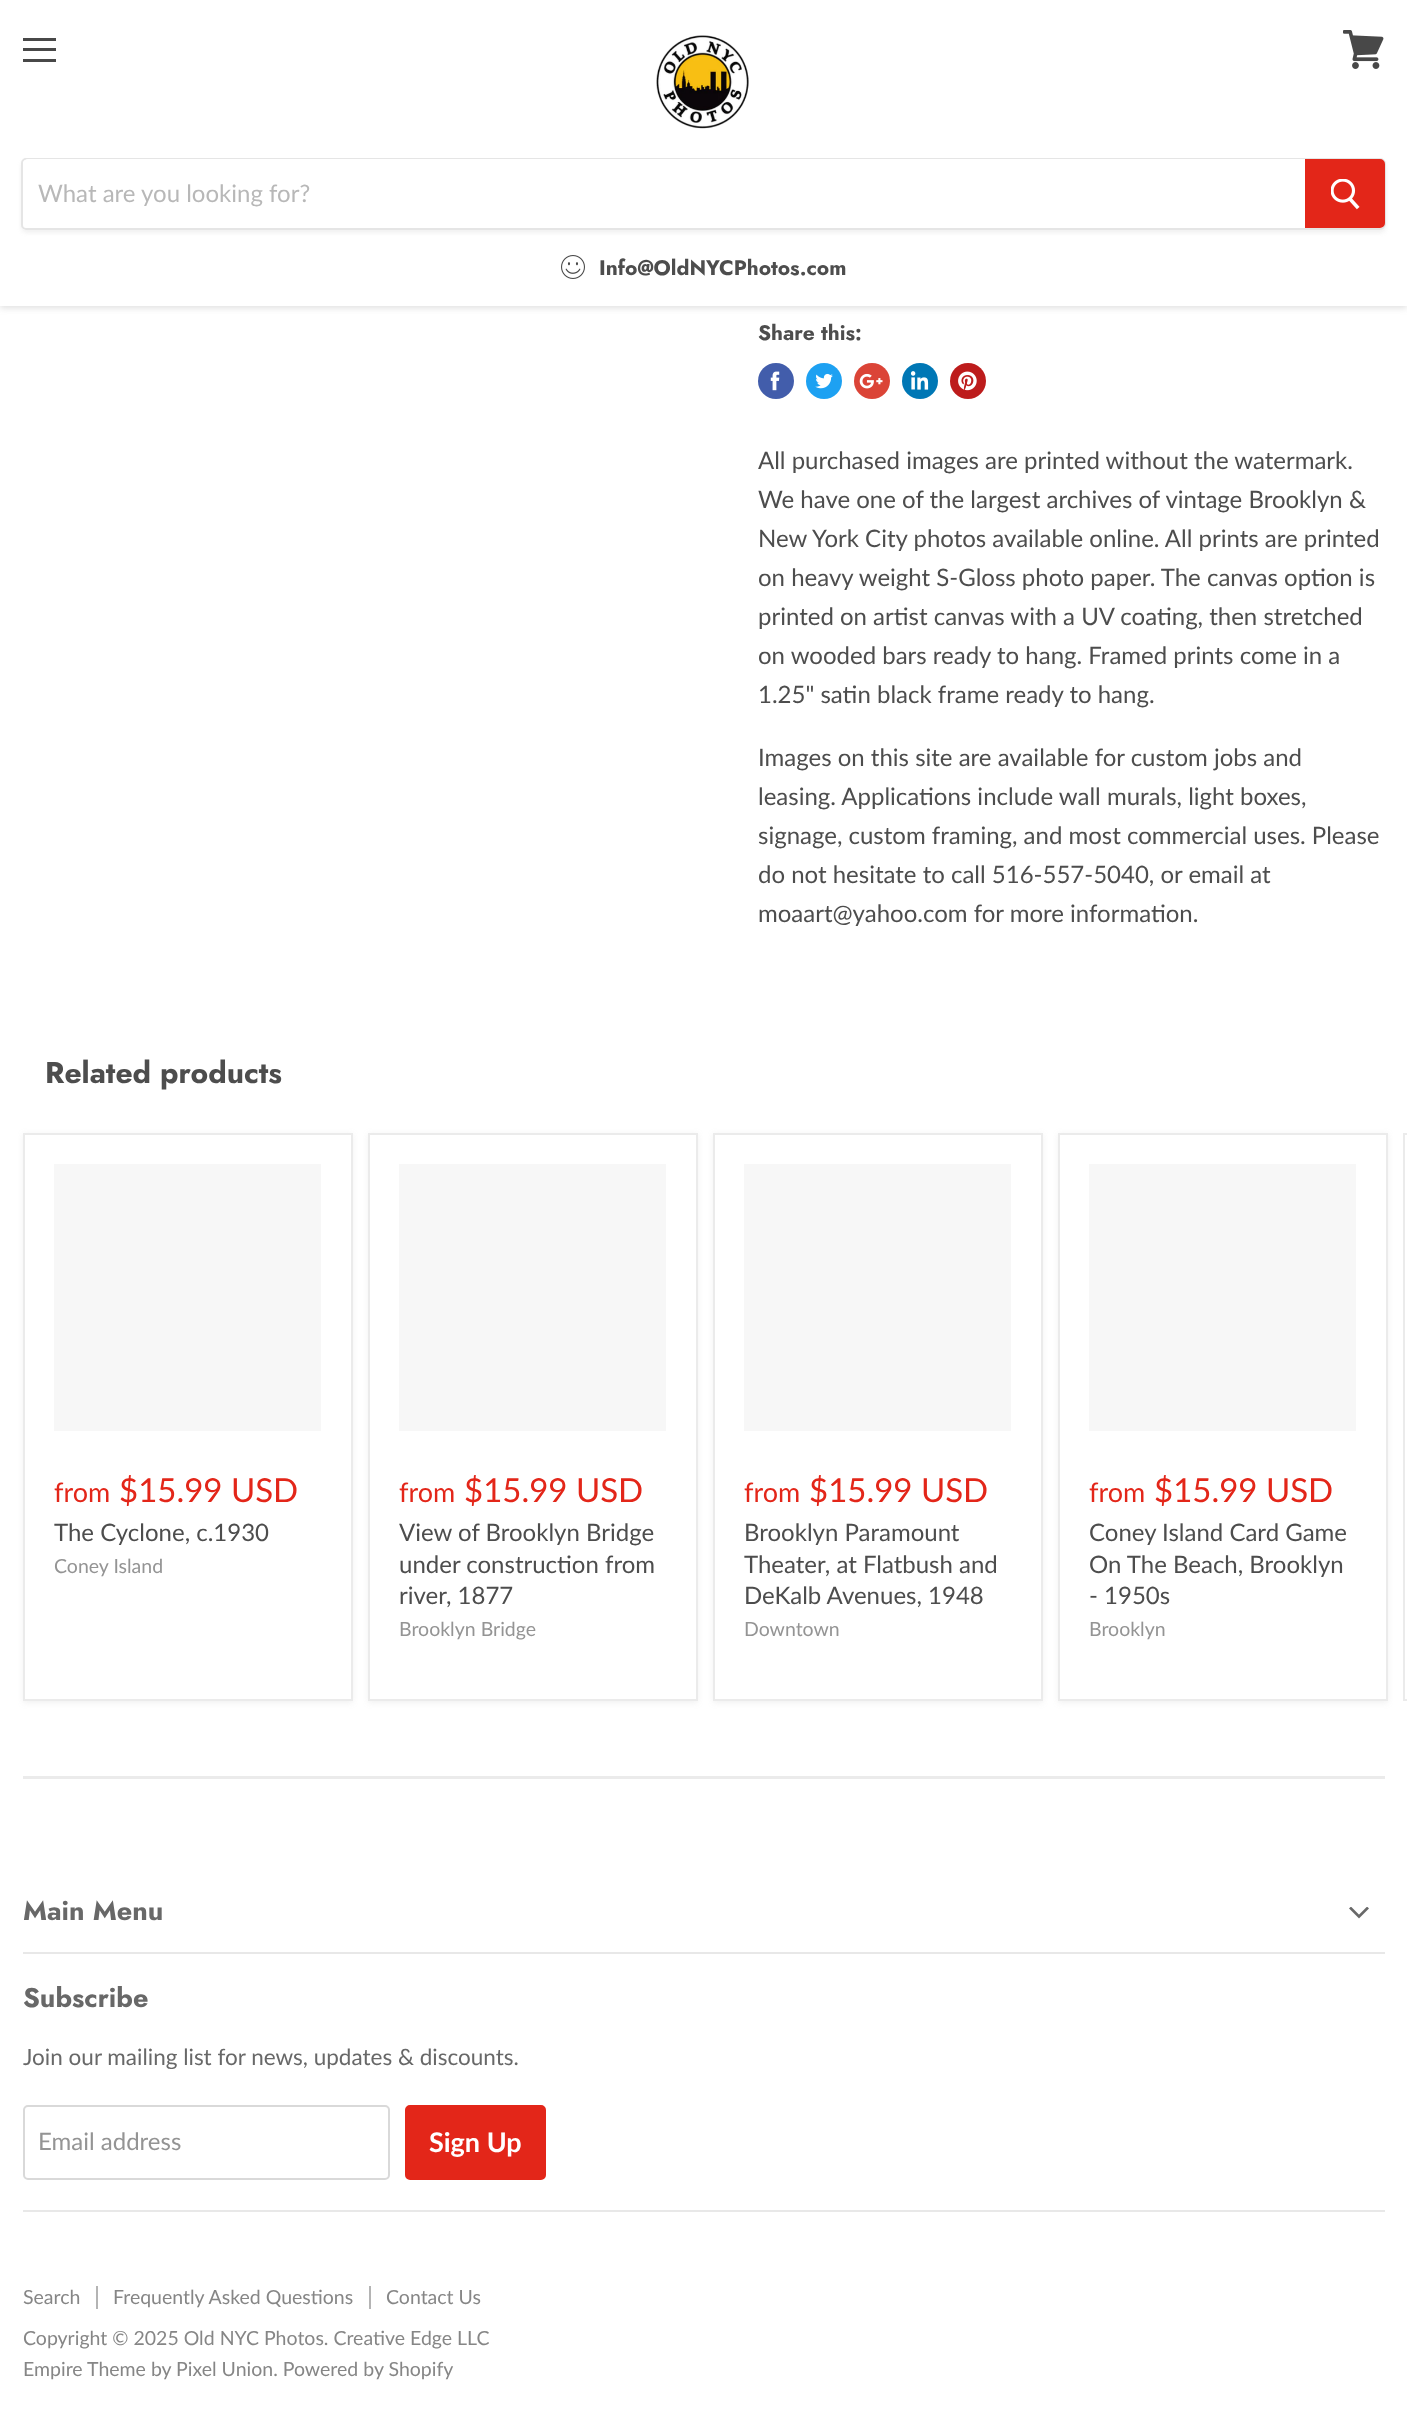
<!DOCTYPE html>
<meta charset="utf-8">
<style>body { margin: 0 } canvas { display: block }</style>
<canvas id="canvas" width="1407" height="2422"></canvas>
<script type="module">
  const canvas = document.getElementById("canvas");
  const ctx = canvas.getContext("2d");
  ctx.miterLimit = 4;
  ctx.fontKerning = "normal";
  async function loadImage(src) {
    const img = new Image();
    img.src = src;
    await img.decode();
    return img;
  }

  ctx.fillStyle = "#ffffff";
  ctx.fillRect(0, 0, 1407, 2422);
  ctx.fillStyle = "rgba(127, 127, 127, 0.25)";
  ctx.filter = "blur(3px)";
  ctx.beginPath();
  ctx.rect(0, -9, 1407, 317);
  ctx.fill();
  ctx.filter = "none";
  ctx.fillStyle = "#ffffff";
  ctx.fillRect(0, 0, 1407, 306);
  ctx.fillStyle = "#484848";
  ctx.fillRect(23, 38, 33, 3);
  ctx.fillRect(23, 48, 33, 3);
  ctx.fillRect(23, 59, 33, 3);
  ctx.drawImage(await loadImage("img1.png"), 1343, 30, 41, 39);
  ctx.drawImage(await loadImage("img2.png"), 656, 35, 93, 94);
  ctx.save();
  ctx.beginPath();
  ctx.moveTo(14, 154);
  ctx.lineTo(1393, 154);
  ctx.lineTo(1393, 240);
  ctx.lineTo(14, 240);
  ctx.closePath();
  ctx.moveTo(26, 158);
  ctx.lineTo(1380, 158);
  ctx.bezierCurveTo(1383.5, 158, 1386, 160.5, 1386, 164);
  ctx.lineTo(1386, 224);
  ctx.bezierCurveTo(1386, 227.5, 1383.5, 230, 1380, 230);
  ctx.lineTo(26, 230);
  ctx.bezierCurveTo(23, 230, 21, 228, 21, 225);
  ctx.lineTo(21, 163);
  ctx.bezierCurveTo(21, 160, 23, 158, 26, 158);
  ctx.closePath();
  ctx.clip("evenodd");
  ctx.fillStyle = "rgba(127, 127, 127, 0.11)";
  ctx.filter = "blur(2px)";
  ctx.beginPath();
  ctx.roundRect(21, 161, 1365, 72, 6);
  ctx.fill();
  ctx.filter = "none";
  ctx.restore();
  ctx.beginPath();
  ctx.roundRect(22, 159, 1363, 70, [4, 5, 5, 4]);
  ctx.strokeStyle = "rgba(127, 127, 127, 0.2)";
  ctx.lineWidth = 2;
  ctx.stroke();
  ctx.fillStyle = "#ffffff";
  ctx.beginPath();
  ctx.roundRect(23, 159, 1282, 69, [5, 0, 0, 5]);
  ctx.fill();
  ctx.font = "24px Lato";
  ctx.fillStyle = "#b8b8b8";
  ctx.fillText("What are you looking for?", 38, 202);
  ctx.fillStyle = "#e32619";
  ctx.beginPath();
  ctx.roundRect(1306, 160, 78, 67, [0, 4, 4, 0]);
  ctx.fill();
  ctx.strokeStyle = "#e32619";
  ctx.stroke();
  ctx.drawImage(await loadImage("img3.png"), 1331, 179, 29, 31);
  ctx.drawImage(await loadImage("img4.png"), 561, 255, 24, 24);
  ctx.font = "bold 21px Jost";
  ctx.fillStyle = "#4d4d4d";
  ctx.fillText("Info@OldNYCPhotos.com", 599, 275);
  ctx.fillText("Share this:", 758, 340);
  ctx.fillStyle = "#425dab";
  ctx.beginPath();
  ctx.arc(776, 381, 18, 0, Math.PI * 2);
  ctx.fill();
  ctx.drawImage(await loadImage("img5.png"), 770, 371, 10, 20);
  ctx.fillStyle = "#1da1f2";
  ctx.beginPath();
  ctx.arc(824, 381, 18, 0, Math.PI * 2);
  ctx.fill();
  ctx.drawImage(await loadImage("img6.png"), 815, 373, 18, 16);
  ctx.fillStyle = "#db4437";
  ctx.beginPath();
  ctx.arc(872, 381, 18, 0, Math.PI * 2);
  ctx.fill();
  ctx.drawImage(await loadImage("img7.png"), 859, 373, 24, 16);
  ctx.fillStyle = "#0077b5";
  ctx.beginPath();
  ctx.arc(920, 381, 18, 0, Math.PI * 2);
  ctx.fill();
  ctx.drawImage(await loadImage("img8.png"), 910, 371, 19, 19);
  ctx.fillStyle = "#bd1c1c";
  ctx.beginPath();
  ctx.arc(968, 381, 18, 0, Math.PI * 2);
  ctx.fill();
  ctx.drawImage(await loadImage("img9.png"), 958, 371, 19, 20);
  ctx.font = "24px Lato";
  ctx.fillStyle = "#4d4d4d";
  ctx.fillText("All purchased images are printed without the watermark.", 758, 469);
  ctx.fillText("We have one of the largest archives of vintage Brooklyn &", 758, 508);
  ctx.fillText("New York City photos available online. All prints are printed", 758, 547);
  ctx.fillText("on heavy weight S-Gloss photo paper. The canvas option is", 758, 586);
  ctx.fillText("printed on artist canvas with a UV coating, then stretched", 758, 625);
  ctx.fillText("on wooded bars ready to hang. Framed prints come in a", 758, 664);
  ctx.fillText("1.25\" satin black frame ready to hang.", 758, 703);
  ctx.fillText("Images on this site are available for custom jobs and", 758, 766);
  ctx.fillText("leasing. Applications include wall murals, light boxes,", 758, 805);
  ctx.fillText("signage, custom framing, and most commercial uses. Please", 758, 844);
  ctx.fillText("do not hesitate to call 516-557-5040, or email at", 758, 883);
  ctx.fillText("moaart@yahoo.com for more information.", 758, 922);
  ctx.font = "bold 30px Jost";
  ctx.fillText("Related products", 45, 1083);
  ctx.fillStyle = "rgba(127, 127, 127, 0.11)";
  ctx.filter = "blur(3px)";
  ctx.beginPath();
  ctx.rect(23, 1134, 330, 569);
  ctx.fill();
  ctx.filter = "none";
  ctx.fillStyle = "#ffffff";
  ctx.beginPath();
  ctx.rect(24, 1134, 328, 566);
  ctx.fill();
  ctx.strokeStyle = "#ebebeb";
  ctx.stroke();
  ctx.fillStyle = "#f7f7f7";
  ctx.fillRect(54, 1164, 267, 267);
  ctx.font = "27px Lato";
  ctx.fillStyle = "#e32619";
  ctx.fillText("from", 54, 1502);
  ctx.font = "33px Lato";
  ctx.fillText("$15.99 USD", 119, 1502);
  ctx.font = "24px Lato";
  ctx.fillStyle = "#4d4d4d";
  ctx.fillText("The Cyclone, c.1930", 54, 1541);
  ctx.font = "19.5px Lato";
  ctx.fillStyle = "#949494";
  ctx.fillText("Coney Island", 54, 1573);
  ctx.fillStyle = "rgba(127, 127, 127, 0.11)";
  ctx.filter = "blur(3px)";
  ctx.beginPath();
  ctx.rect(368, 1134, 330, 569);
  ctx.fill();
  ctx.filter = "none";
  ctx.fillStyle = "#ffffff";
  ctx.beginPath();
  ctx.rect(369, 1134, 328, 566);
  ctx.fill();
  ctx.stroke();
  ctx.fillStyle = "#f7f7f7";
  ctx.fillRect(399, 1164, 267, 267);
  ctx.font = "27px Lato";
  ctx.fillStyle = "#e32619";
  ctx.fillText("from", 399, 1502);
  ctx.font = "33px Lato";
  ctx.fillText("$15.99 USD", 464, 1502);
  ctx.font = "24px Lato";
  ctx.fillStyle = "#4d4d4d";
  ctx.fillText("View of Brooklyn Bridge", 399, 1541);
  ctx.fillText("under construction from", 399, 1573);
  ctx.fillText("river, 1877", 399, 1604);
  ctx.font = "19.5px Lato";
  ctx.fillStyle = "#949494";
  ctx.fillText("Brooklyn Bridge", 399, 1636);
  ctx.fillStyle = "rgba(127, 127, 127, 0.11)";
  ctx.filter = "blur(3px)";
  ctx.beginPath();
  ctx.rect(713, 1134, 330, 569);
  ctx.fill();
  ctx.filter = "none";
  ctx.fillStyle = "#ffffff";
  ctx.beginPath();
  ctx.rect(714, 1134, 328, 566);
  ctx.fill();
  ctx.stroke();
  ctx.fillStyle = "#f7f7f7";
  ctx.fillRect(744, 1164, 267, 267);
  ctx.font = "27px Lato";
  ctx.fillStyle = "#e32619";
  ctx.fillText("from", 744, 1502);
  ctx.font = "33px Lato";
  ctx.fillText("$15.99 USD", 809, 1502);
  ctx.font = "24px Lato";
  ctx.fillStyle = "#4d4d4d";
  ctx.fillText("Brooklyn Paramount", 744, 1541);
  ctx.fillText("Theater, at Flatbush and", 744, 1573);
  ctx.fillText("DeKalb Avenues, 1948", 744, 1604);
  ctx.font = "19.5px Lato";
  ctx.fillStyle = "#949494";
  ctx.fillText("Downtown", 744, 1636);
  ctx.fillStyle = "rgba(127, 127, 127, 0.11)";
  ctx.filter = "blur(3px)";
  ctx.beginPath();
  ctx.rect(1058, 1134, 330, 569);
  ctx.fill();
  ctx.filter = "none";
  ctx.fillStyle = "#ffffff";
  ctx.beginPath();
  ctx.rect(1059, 1134, 328, 566);
  ctx.fill();
  ctx.stroke();
  ctx.fillStyle = "#f7f7f7";
  ctx.fillRect(1089, 1164, 267, 267);
  ctx.font = "27px Lato";
  ctx.fillStyle = "#e32619";
  ctx.fillText("from", 1089, 1502);
  ctx.font = "33px Lato";
  ctx.fillText("$15.99 USD", 1154, 1502);
  ctx.font = "24px Lato";
  ctx.fillStyle = "#4d4d4d";
  ctx.fillText("Coney Island Card Game", 1089, 1541);
  ctx.fillText("On The Beach, Brooklyn", 1089, 1573);
  ctx.fillText("- 1950s", 1089, 1604);
  ctx.font = "19.5px Lato";
  ctx.fillStyle = "#949494";
  ctx.fillText("Brooklyn", 1089, 1636);
  ctx.strokeRect(1404, 1134, 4, 566);
  ctx.fillStyle = "#ebebeb";
  ctx.fillRect(23, 1776, 1362, 3);
  ctx.fillStyle = "#e8e8e8";
  ctx.fillRect(23, 1952, 1362, 2);
  ctx.font = "bold 27px Jost";
  ctx.fillStyle = "#686868";
  ctx.fillText("Main Menu", 23, 1920);
  ctx.drawImage(await loadImage("img10.png"), 1349, 1907, 20, 12);
  ctx.fillStyle = "#e8e8e8";
  ctx.fillRect(23, 2210, 1362, 2);
  ctx.fillStyle = "#686868";
  ctx.fillText("Subscribe", 23, 2007);
  ctx.font = "22.5px Lato";
  ctx.fillText("Join our mailing list for news, updates & discounts.", 23, 2065);
  ctx.beginPath();
  ctx.roundRect(24, 2106, 365, 73, 4);
  ctx.strokeStyle = "#d9d9d9";
  ctx.stroke();
  ctx.font = "24px Lato";
  ctx.fillStyle = "#949494";
  ctx.fillText("Email address", 38, 2150);
  ctx.fillStyle = "#e32619";
  ctx.beginPath();
  ctx.roundRect(406, 2106, 139, 73, 4);
  ctx.fill();
  ctx.strokeStyle = "#e32619";
  ctx.stroke();
  ctx.font = "bold 27px Lato";
  ctx.fillStyle = "#ffffff";
  ctx.fillText("Sign Up", 429, 2152);
  ctx.fillStyle = "#b4b4b4";
  ctx.fillRect(96, 2286, 2, 23);
  ctx.font = "19.5px Lato";
  ctx.fillStyle = "#868686";
  ctx.fillText("Search", 23, 2304);
  ctx.fillStyle = "#b4b4b4";
  ctx.fillRect(369, 2286, 2, 23);
  ctx.fillStyle = "#868686";
  ctx.fillText("Frequently Asked Questions", 113, 2304);
  ctx.fillText("Contact Us", 386, 2304);
  ctx.fillText("Copyright © 2025 Old NYC Photos. Creative Edge LLC", 23, 2345);
  ctx.fillText("Empire Theme by Pixel Union. Powered by Shopify", 23, 2376);
</script>
